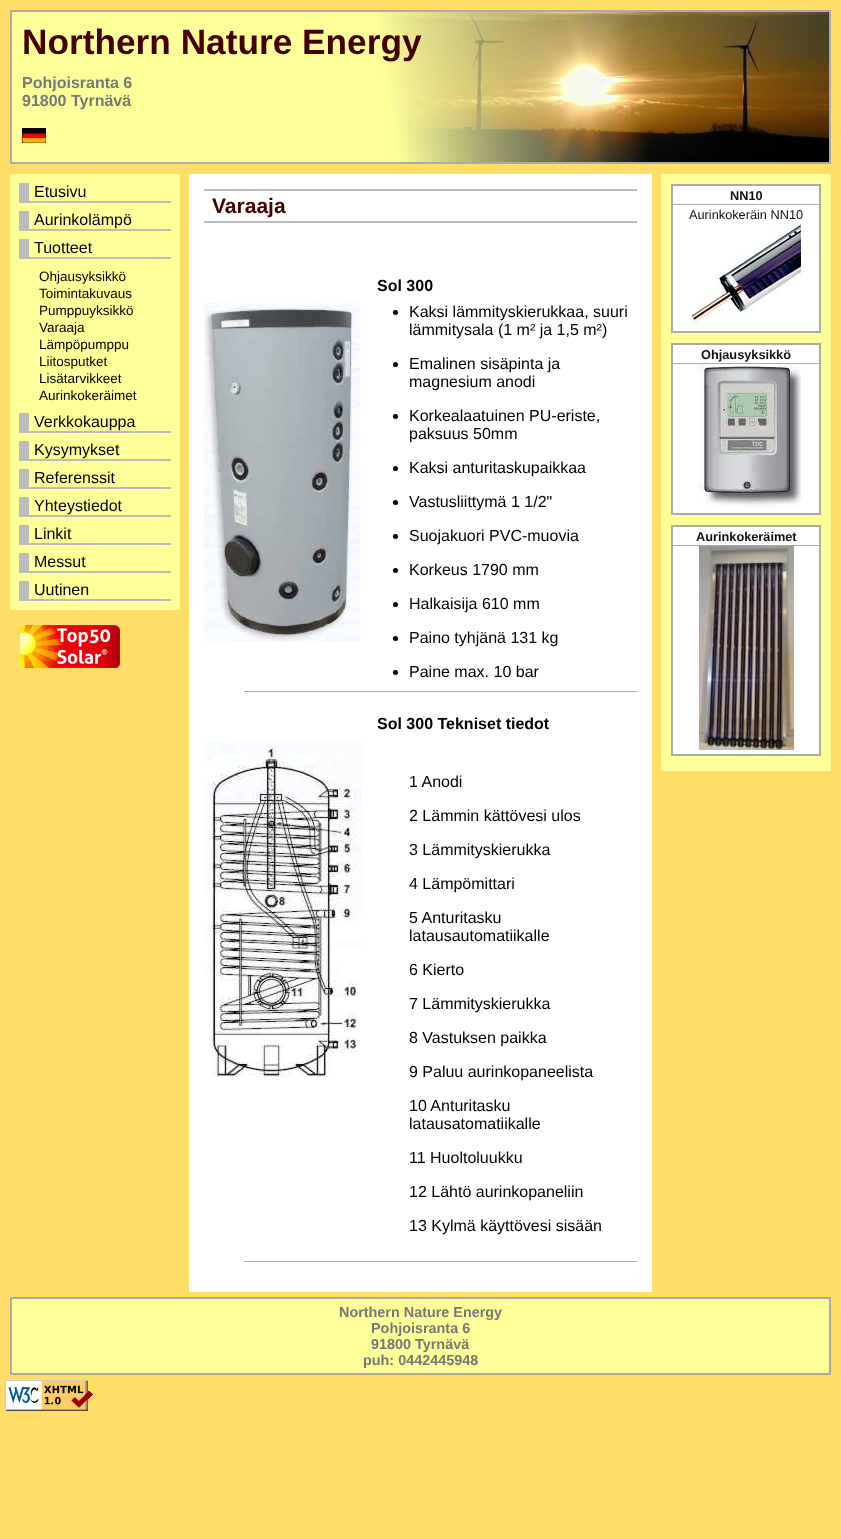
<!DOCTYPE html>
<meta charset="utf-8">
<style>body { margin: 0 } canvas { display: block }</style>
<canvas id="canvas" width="841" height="1539"></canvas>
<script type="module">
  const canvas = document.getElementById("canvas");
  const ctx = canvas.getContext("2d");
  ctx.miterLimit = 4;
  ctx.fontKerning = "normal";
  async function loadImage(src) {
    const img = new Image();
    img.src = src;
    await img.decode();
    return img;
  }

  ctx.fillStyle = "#ffdd66";
  ctx.fillRect(0, 0, 841, 1539);
  ctx.fillStyle = "#ffff99";
  ctx.fillRect(12, 12, 365, 150);
  ctx.drawImage(await loadImage("img1.png"), 377, 12, 452, 150);
  ctx.strokeStyle = "#aaaaaa";
  ctx.lineWidth = 2;
  ctx.strokeRect(11, 11, 819, 152);
  ctx.font = "bold 35.25px Liberation Sans";
  ctx.fillStyle = "#440000";
  ctx.fillText("Northern Nature Energy", 22, 54);
  ctx.font = "bold 16px Liberation Sans";
  ctx.fillStyle = "#777777";
  ctx.fillText("Pohjoisranta 6", 22, 88);
  ctx.fillText("91800 Tyrnävä", 22, 106);
  ctx.drawImage(await loadImage("img2.png"), 22, 128, 24, 15);
  ctx.fillStyle = "#ffff99";
  ctx.fillRect(10, 174, 170, 436);
  ctx.fillStyle = "#bbbbbb";
  ctx.fillRect(29, 201, 142, 2);
  ctx.fillRect(19, 183, 10, 20);
  ctx.font = "16px Liberation Sans";
  ctx.fillStyle = "#000000";
  ctx.fillText("Etusivu", 34, 197);
  ctx.fillStyle = "#bbbbbb";
  ctx.fillRect(29, 229, 142, 2);
  ctx.fillRect(19, 211, 10, 20);
  ctx.fillStyle = "#000000";
  ctx.fillText("Aurinkolämpö", 34, 225);
  ctx.fillStyle = "#bbbbbb";
  ctx.fillRect(29, 257, 142, 2);
  ctx.fillRect(19, 239, 10, 20);
  ctx.fillStyle = "#000000";
  ctx.fillText("Tuotteet", 34, 253);
  ctx.font = "13.5px Liberation Sans";
  ctx.fillText("Ohjausyksikkö", 39, 281);
  ctx.fillText("Toimintakuvaus", 39, 298);
  ctx.fillText("Pumppuyksikkö", 39, 315);
  ctx.fillText("Varaaja", 39, 332);
  ctx.fillText("Lämpöpumppu", 39, 349);
  ctx.fillText("Liitosputket", 39, 366);
  ctx.fillText("Lisätarvikkeet", 39, 383);
  ctx.fillText("Aurinkokeräimet", 39, 400);
  ctx.fillStyle = "#bbbbbb";
  ctx.fillRect(29, 431, 142, 2);
  ctx.fillRect(19, 413, 10, 20);
  ctx.font = "16px Liberation Sans";
  ctx.fillStyle = "#000000";
  ctx.fillText("Verkkokauppa", 34, 427);
  ctx.fillStyle = "#bbbbbb";
  ctx.fillRect(29, 459, 142, 2);
  ctx.fillRect(19, 441, 10, 20);
  ctx.fillStyle = "#000000";
  ctx.fillText("Kysymykset", 34, 455);
  ctx.fillStyle = "#bbbbbb";
  ctx.fillRect(29, 487, 142, 2);
  ctx.fillRect(19, 469, 10, 20);
  ctx.fillStyle = "#000000";
  ctx.fillText("Referenssit", 34, 483);
  ctx.fillStyle = "#bbbbbb";
  ctx.fillRect(29, 515, 142, 2);
  ctx.fillRect(19, 497, 10, 20);
  ctx.fillStyle = "#000000";
  ctx.fillText("Yhteystiedot", 34, 511);
  ctx.fillStyle = "#bbbbbb";
  ctx.fillRect(29, 543, 142, 2);
  ctx.fillRect(19, 525, 10, 20);
  ctx.fillStyle = "#000000";
  ctx.fillText("Linkit", 34, 539);
  ctx.fillStyle = "#bbbbbb";
  ctx.fillRect(29, 571, 142, 2);
  ctx.fillRect(19, 553, 10, 20);
  ctx.fillStyle = "#000000";
  ctx.fillText("Messut", 34, 567);
  ctx.fillStyle = "#bbbbbb";
  ctx.fillRect(29, 599, 142, 2);
  ctx.fillRect(19, 581, 10, 20);
  ctx.fillStyle = "#000000";
  ctx.fillText("Uutinen", 34, 595);
  ctx.drawImage(await loadImage("img3.png"), 20, 625, 100, 43);
  ctx.fillStyle = "#ffffff";
  ctx.fillRect(189, 174, 463, 1118);
  ctx.fillStyle = "#bbbbbb";
  ctx.fillRect(204, 189, 433, 2);
  ctx.fillRect(204, 221, 433, 2);
  ctx.font = "bold 21px Liberation Sans";
  ctx.fillStyle = "#440000";
  ctx.fillText("Varaaja", 212, 213);
  ctx.font = "bold 16px Liberation Sans";
  ctx.fillStyle = "#000000";
  ctx.fillText("Sol 300", 377, 291);
  ctx.drawImage(await loadImage("img4.png"), 204, 303, 156, 339);
  ctx.fillStyle = "#aaaaaa";
  ctx.fillRect(244, 691, 393, 1);
  ctx.fillStyle = "#000000";
  ctx.beginPath();
  ctx.arc(395.5, 312.5, 2.5, 0, Math.PI * 2);
  ctx.fill();
  ctx.font = "16px Liberation Sans";
  ctx.fillText("Kaksi lämmityskierukkaa, suuri", 409, 317);
  ctx.fillText("lämmitysala (1 m² ja 1,5 m²)", 409, 335);
  ctx.beginPath();
  ctx.arc(395.5, 364.5, 2.5, 0, Math.PI * 2);
  ctx.fill();
  ctx.fillText("Emalinen sisäpinta ja", 409, 369);
  ctx.fillText("magnesium anodi", 409, 387);
  ctx.beginPath();
  ctx.arc(395.5, 416.5, 2.5, 0, Math.PI * 2);
  ctx.fill();
  ctx.fillText("Korkealaatuinen PU-eriste,", 409, 421);
  ctx.fillText("paksuus 50mm", 409, 439);
  ctx.beginPath();
  ctx.arc(395.5, 468.5, 2.5, 0, Math.PI * 2);
  ctx.fill();
  ctx.fillText("Kaksi anturitaskupaikkaa", 409, 473);
  ctx.beginPath();
  ctx.arc(395.5, 502.5, 2.5, 0, Math.PI * 2);
  ctx.fill();
  ctx.fillText("Vastusliittymä 1 1/2\"", 409, 507);
  ctx.beginPath();
  ctx.arc(395.5, 536.5, 2.5, 0, Math.PI * 2);
  ctx.fill();
  ctx.fillText("Suojakuori PVC-muovia", 409, 541);
  ctx.beginPath();
  ctx.arc(395.5, 570.5, 2.5, 0, Math.PI * 2);
  ctx.fill();
  ctx.fillText("Korkeus 1790 mm", 409, 575);
  ctx.beginPath();
  ctx.arc(395.5, 604.5, 2.5, 0, Math.PI * 2);
  ctx.fill();
  ctx.fillText("Halkaisija 610 mm", 409, 609);
  ctx.beginPath();
  ctx.arc(395.5, 638.5, 2.5, 0, Math.PI * 2);
  ctx.fill();
  ctx.fillText("Paino tyhjänä 131 kg", 409, 643);
  ctx.beginPath();
  ctx.arc(395.5, 672.5, 2.5, 0, Math.PI * 2);
  ctx.fill();
  ctx.fillText("Paine max. 10 bar", 409, 677);
  ctx.font = "bold 16px Liberation Sans";
  ctx.fillText("Sol 300 Tekniset tiedot", 377, 729);
  ctx.drawImage(await loadImage("img5.png"), 204, 741, 159, 336);
  ctx.fillStyle = "#aaaaaa";
  ctx.fillRect(244, 1261, 393, 1);
  ctx.font = "16px Liberation Sans";
  ctx.fillStyle = "#000000";
  ctx.fillText("1 Anodi", 409, 787);
  ctx.fillText("2 Lämmin kättövesi ulos", 409, 821);
  ctx.fillText("3 Lämmityskierukka", 409, 855);
  ctx.fillText("4 Lämpömittari", 409, 889);
  ctx.fillText("5 Anturitasku", 409, 923);
  ctx.fillText("latausautomatiikalle", 409, 941);
  ctx.fillText("6 Kierto", 409, 975);
  ctx.fillText("7 Lämmityskierukka", 409, 1009);
  ctx.fillText("8 Vastuksen paikka", 409, 1043);
  ctx.fillText("9 Paluu aurinkopaneelista", 409, 1077);
  ctx.fillText("10 Anturitasku", 409, 1111);
  ctx.fillText("latausatomatiikalle", 409, 1129);
  ctx.fillText("11 Huoltoluukku", 409, 1163);
  ctx.fillText("12 Lähtö aurinkopaneliin", 409, 1197);
  ctx.fillText("13 Kylmä käyttövesi sisään", 409, 1231);
  ctx.fillStyle = "#ffff99";
  ctx.fillRect(661, 174, 170, 597);
  ctx.fillStyle = "#ffffff";
  ctx.beginPath();
  ctx.rect(672, 185, 148, 147);
  ctx.fill();
  ctx.stroke();
  ctx.fillStyle = "#aaaaaa";
  ctx.fillRect(673, 204, 146, 1);
  ctx.font = "bold 12.75px Liberation Sans";
  ctx.fillStyle = "#111111";
  ctx.fillText("NN10", 730, 200);
  ctx.font = "12.75px Liberation Sans";
  ctx.fillText("Aurinkokeräin NN10", 689, 219);
  ctx.drawImage(await loadImage("img6.png"), 691, 223, 110, 104);
  ctx.fillStyle = "#ffffff";
  ctx.beginPath();
  ctx.rect(672, 344, 148, 170);
  ctx.fill();
  ctx.stroke();
  ctx.fillStyle = "#aaaaaa";
  ctx.fillRect(673, 363, 146, 1);
  ctx.font = "bold 12.75px Liberation Sans";
  ctx.fillStyle = "#111111";
  ctx.fillText("Ohjausyksikkö", 701, 359);
  ctx.drawImage(await loadImage("img7.png"), 699, 364, 102, 144);
  ctx.fillStyle = "#ffffff";
  ctx.beginPath();
  ctx.rect(672, 526, 148, 229);
  ctx.fill();
  ctx.stroke();
  ctx.fillStyle = "#aaaaaa";
  ctx.fillRect(673, 545, 146, 1);
  ctx.fillStyle = "#111111";
  ctx.fillText("Aurinkokeräimet", 696, 541);
  ctx.drawImage(await loadImage("img8.png"), 699, 546, 95, 204);
  ctx.fillStyle = "#ffff99";
  ctx.beginPath();
  ctx.rect(11, 1298, 819, 76);
  ctx.fill();
  ctx.stroke();
  ctx.font = "bold 14.4px Liberation Sans";
  ctx.fillStyle = "#777777";
  ctx.fillText("Northern Nature Energy", 339, 1317);
  ctx.fillText("Pohjoisranta 6", 371, 1333);
  ctx.fillText("91800 Tyrnävä", 371, 1349);
  ctx.fillText("puh: 0442445948", 363, 1365);
  ctx.drawImage(await loadImage("img9.png"), 5, 1380, 88, 31);
</script>
